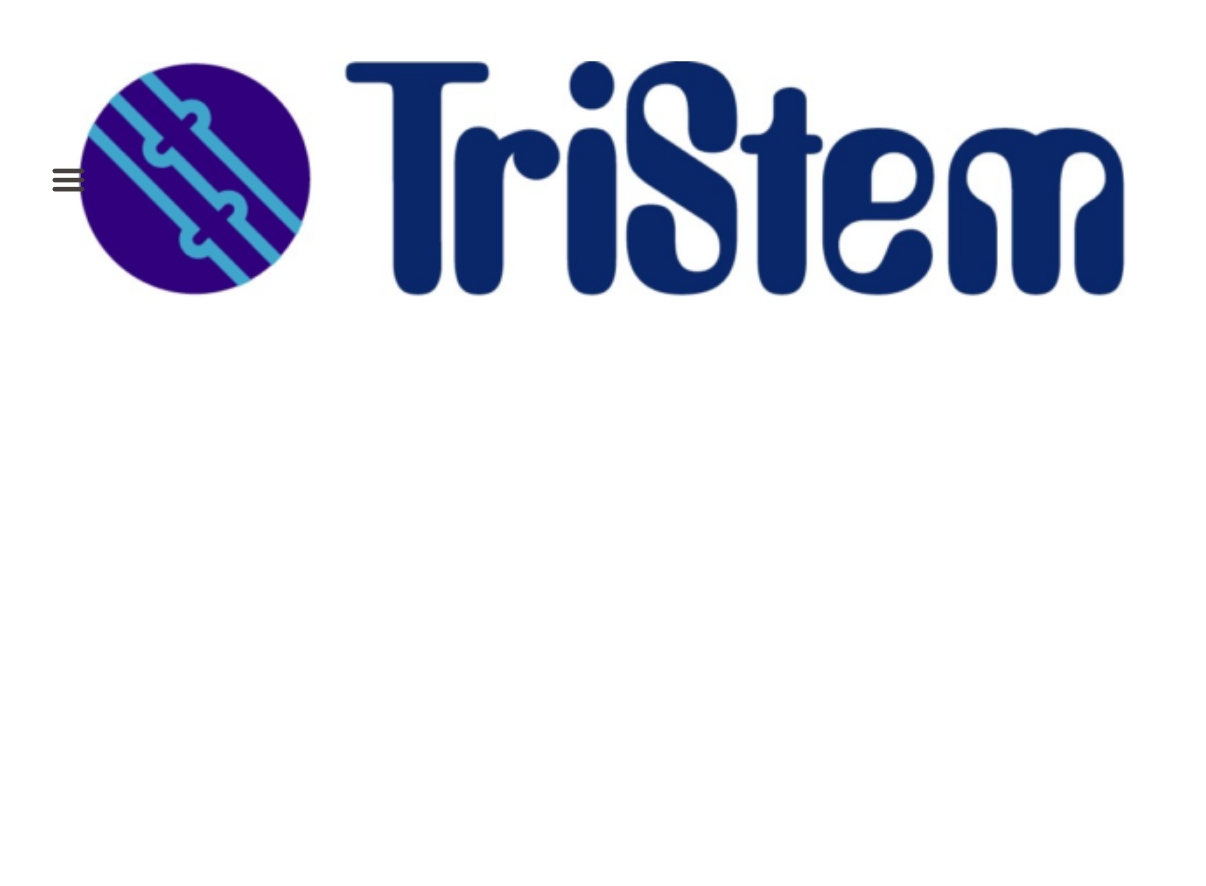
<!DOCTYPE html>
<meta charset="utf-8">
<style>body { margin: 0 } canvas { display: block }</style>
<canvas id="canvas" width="1206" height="886"></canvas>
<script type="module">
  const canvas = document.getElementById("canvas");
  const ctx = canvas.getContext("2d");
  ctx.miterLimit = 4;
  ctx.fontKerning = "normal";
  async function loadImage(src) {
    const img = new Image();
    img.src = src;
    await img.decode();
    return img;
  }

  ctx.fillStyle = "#ffffff";
  ctx.fillRect(0, 0, 1206, 886);
  ctx.drawImage(await loadImage("img2.png"), 78, 61, 1048, 236);
  ctx.drawImage(await loadImage("img1.png"), 52, 168, 33, 24);
</script>
